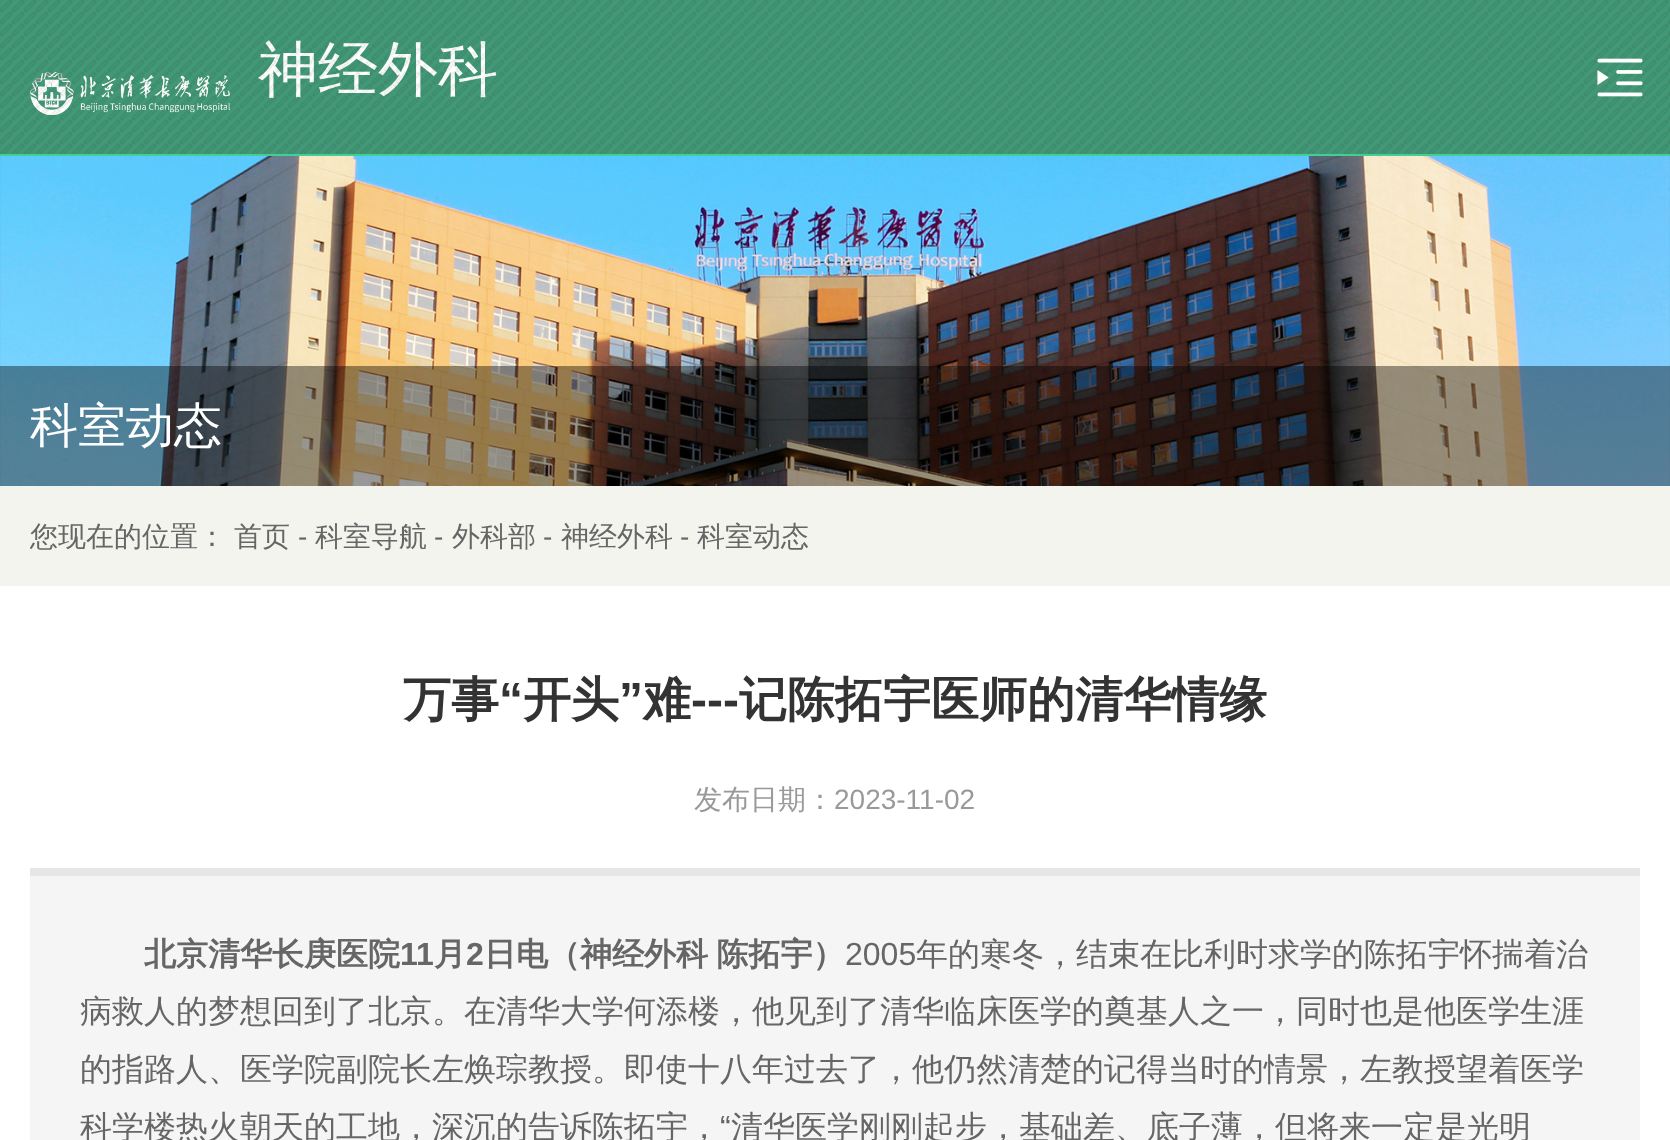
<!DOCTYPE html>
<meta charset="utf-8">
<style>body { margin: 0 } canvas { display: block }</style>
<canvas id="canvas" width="1670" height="1140"></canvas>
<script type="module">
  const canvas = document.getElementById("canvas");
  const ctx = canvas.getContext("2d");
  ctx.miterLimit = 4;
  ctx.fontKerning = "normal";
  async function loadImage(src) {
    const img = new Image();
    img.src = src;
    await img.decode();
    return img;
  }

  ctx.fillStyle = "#ffffff";
  ctx.fillRect(0, 0, 1670, 1140);
  ctx.fillStyle = "#439977";
  ctx.fillRect(0, 0, 1670, 154);
  ctx.fillStyle = "#41cf96";
  ctx.fillRect(0, 154, 1670, 2);
  ctx.drawImage(await loadImage("img2.png"), 30, 72, 200, 43);
  ctx.font = "500 60px WenQuanYi Zen Hei";
  ctx.fillStyle = "#ffffff";
  ctx.fillText("神经外科", 258, 90);
  ctx.drawImage(await loadImage("img1.png"), 0, 0, 1670, 154);
  ctx.drawImage(await loadImage("img3.png"), 1597, 58, 46, 39);
  ctx.drawImage(await loadImage("img4.png"), 0, 156, 1670, 330);
  ctx.fillStyle = "rgba(0, 0, 0, 0.4)";
  ctx.fillRect(0, 366, 1670, 120);
  ctx.font = "500 48px WenQuanYi Zen Hei";
  ctx.fillStyle = "#ffffff";
  ctx.fillText("科室动态", 30, 442);
  ctx.fillStyle = "#f4f4ef";
  ctx.fillRect(0, 486, 1670, 100);
  ctx.font = "500 28px WenQuanYi Zen Hei";
  ctx.fillStyle = "#666666";
  ctx.fillText("您现在的位置：", 30, 546);
  ctx.fillText("首页", 234, 546);
  ctx.font = "28px Liberation Sans";
  ctx.fillText("-", 298, 546);
  ctx.font = "500 28px WenQuanYi Zen Hei";
  ctx.fillText("科室导航", 315, 546);
  ctx.font = "28px Liberation Sans";
  ctx.fillText("-", 434, 546);
  ctx.font = "500 28px WenQuanYi Zen Hei";
  ctx.fillText("外科部", 452, 546);
  ctx.font = "28px Liberation Sans";
  ctx.fillText("-", 543, 546);
  ctx.font = "500 28px WenQuanYi Zen Hei";
  ctx.fillText("神经外科", 561, 546);
  ctx.font = "28px Liberation Sans";
  ctx.fillText("-", 680, 546);
  ctx.font = "500 28px WenQuanYi Zen Hei";
  ctx.fillText("科室动态", 697, 546);
  ctx.font = "bold 48px WenQuanYi Zen Hei";
  ctx.fillStyle = "#333333";
  ctx.fillText("万事", 403, 716);
  ctx.font = "bold 48px Liberation Sans";
  ctx.fillText("“", 499, 716);
  ctx.font = "bold 48px WenQuanYi Zen Hei";
  ctx.fillText("开头", 523, 716);
  ctx.font = "bold 48px Liberation Sans";
  ctx.fillText("”", 619, 716);
  ctx.font = "bold 48px WenQuanYi Zen Hei";
  ctx.fillText("难", 643, 716);
  ctx.fillText("记陈拓宇医师的清华情缘", 739, 716);
  ctx.font = "bold 48px Liberation Sans";
  ctx.fillText("---", 691, 716);
  ctx.font = "500 28px WenQuanYi Zen Hei";
  ctx.fillStyle = "#999999";
  ctx.fillText("发布日期：", 694, 809);
  ctx.font = "28px Liberation Sans";
  ctx.fillText("2023-11-02", 834, 809);
  ctx.fillStyle = "#f5f5f5";
  ctx.fillRect(30, 876, 1610, 264);
  ctx.fillStyle = "#e6e6e6";
  ctx.fillRect(30, 868, 1610, 8);
  ctx.font = "bold 32px WenQuanYi Zen Hei";
  ctx.fillStyle = "#666666";
  ctx.fillText("北京清华长庚医院", 144, 965);
  ctx.font = "bold 32px Liberation Sans";
  ctx.fillText("11", 400, 965);
  ctx.font = "bold 32px WenQuanYi Zen Hei";
  ctx.fillText("月", 434, 965);
  ctx.font = "bold 32px Liberation Sans";
  ctx.fillText("2", 466, 965);
  ctx.wordSpacing = "-1px";
  ctx.font = "bold 32px WenQuanYi Zen Hei";
  ctx.fillText("日电（神经外科 陈拓宇）", 484, 965);
  ctx.wordSpacing = "0px";
  ctx.font = "32px Liberation Sans";
  ctx.fillText("2005", 845, 965);
  ctx.font = "500 32px WenQuanYi Zen Hei";
  ctx.fillText("年的寒冬，结束在比利时求学的陈拓宇怀揣着治", 916, 965);
  ctx.fillText("病救人的梦想回到了北京。在清华大学何添楼，他见到了清华临床医学的奠基人之一，同时也是他医学生涯", 80, 1022);
  ctx.fillText("的指路人、医学院副院长左焕琮教授。即使十八年过去了，他仍然清楚的记得当时的情景，左教授望着医学", 80, 1080);
  ctx.fillText("科学楼热火朝天的工地，深沉的告诉陈拓宇，", 80, 1138);
  ctx.font = "32px Liberation Sans";
  ctx.fillText("“", 720, 1138);
  ctx.font = "500 32px WenQuanYi Zen Hei";
  ctx.fillText("清华医学刚刚起步，基础差、底子薄，但将来一定是光明", 731, 1138);
</script>
